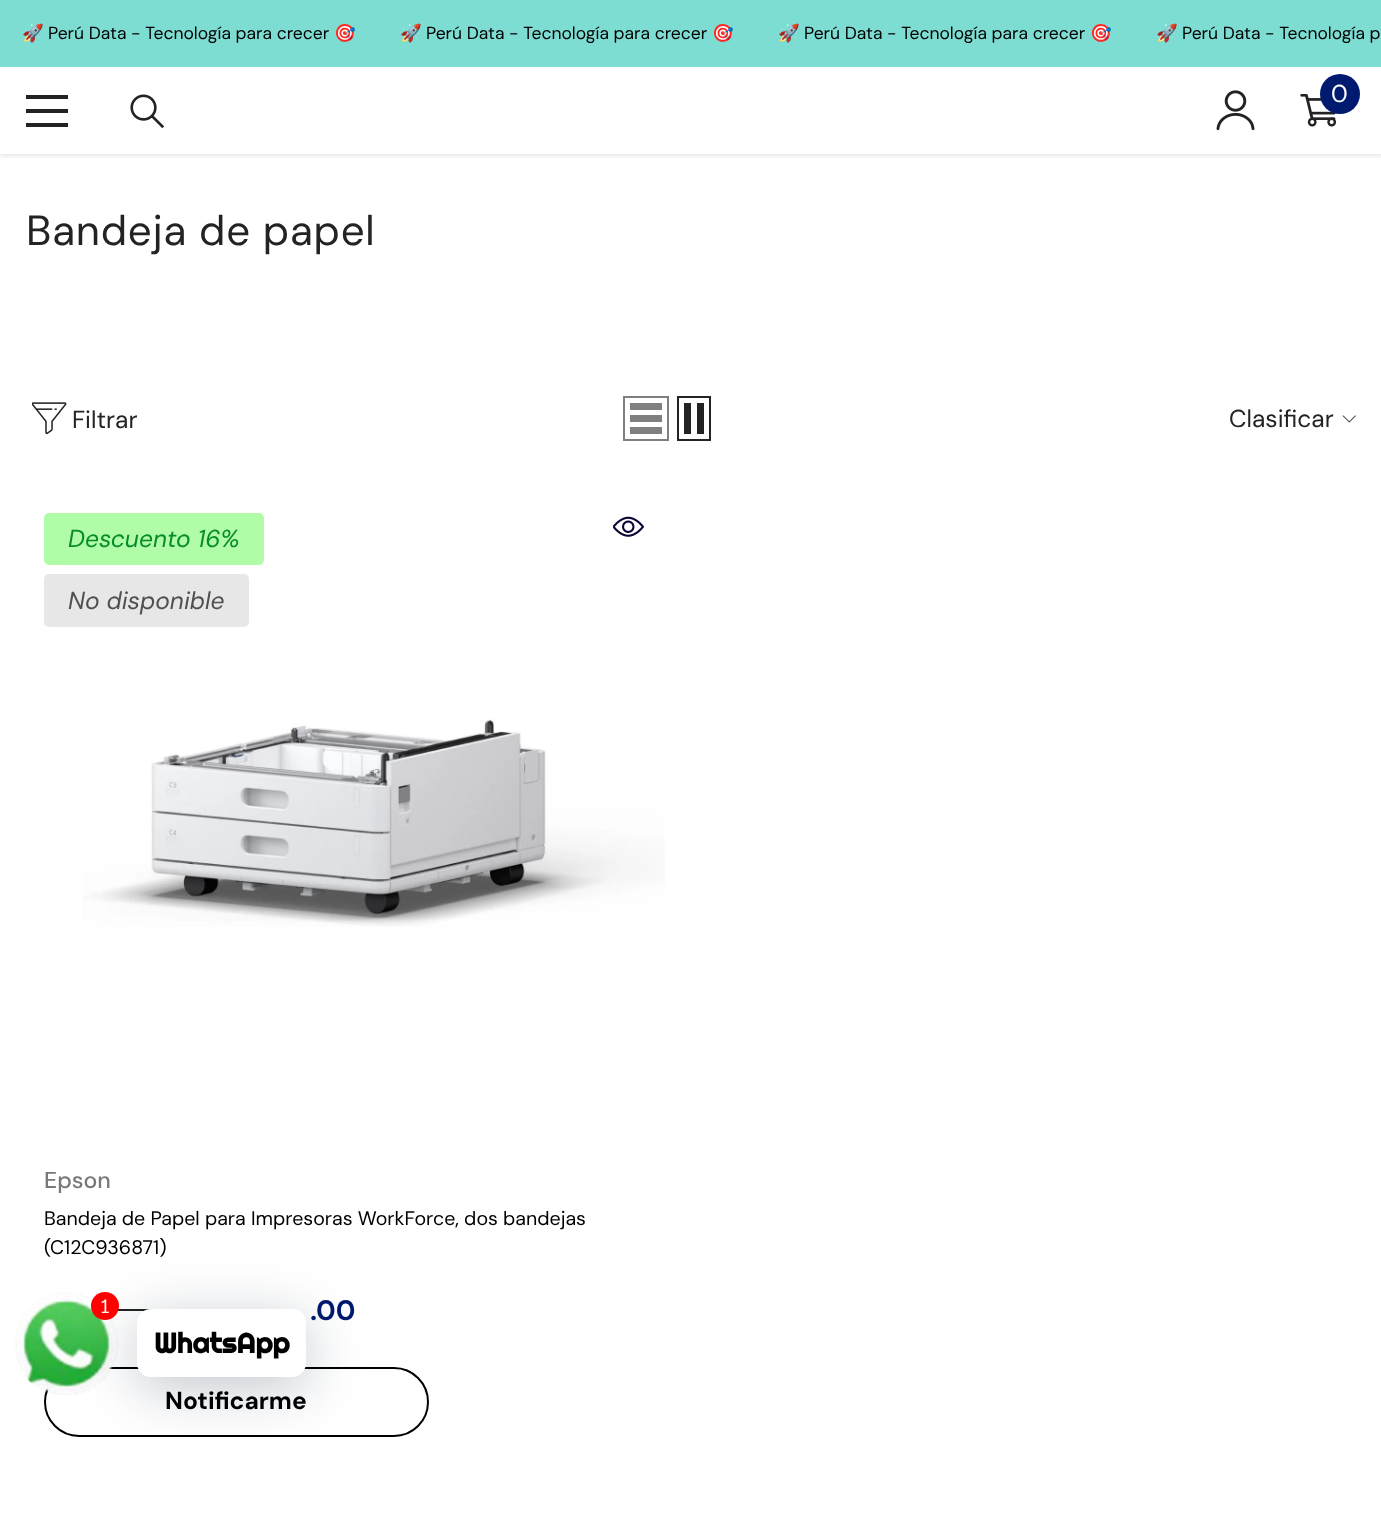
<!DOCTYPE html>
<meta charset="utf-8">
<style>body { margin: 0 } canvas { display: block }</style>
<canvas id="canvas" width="1381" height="1535"></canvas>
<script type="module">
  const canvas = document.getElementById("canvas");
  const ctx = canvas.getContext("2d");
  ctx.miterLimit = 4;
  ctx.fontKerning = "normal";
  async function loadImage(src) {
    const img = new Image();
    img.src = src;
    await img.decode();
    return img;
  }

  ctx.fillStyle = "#ffffff";
  ctx.fillRect(0, 0, 1381, 1535);
  ctx.fillStyle = "#7eddd3";
  ctx.fillRect(0, 0, 1381, 67);
  ctx.font = "17.5px Noto Color Emoji";
  ctx.fillStyle = "#000000";
  ctx.fillText("🚀", 22, 39);
  ctx.font = "17.5px DM Sans";
  ctx.fillText("Perú Data - Tecnología para crecer", 48, 39);
  ctx.font = "17.5px Noto Color Emoji";
  ctx.fillText("🎯", 334, 39);
  ctx.fillText("🚀", 400, 39);
  ctx.font = "17.5px DM Sans";
  ctx.fillText("Perú Data - Tecnología para crecer", 426, 39);
  ctx.font = "17.5px Noto Color Emoji";
  ctx.fillText("🎯", 712, 39);
  ctx.fillText("🚀", 778, 39);
  ctx.font = "17.5px DM Sans";
  ctx.fillText("Perú Data - Tecnología para crecer", 804, 39);
  ctx.font = "17.5px Noto Color Emoji";
  ctx.fillText("🎯", 1090, 39);
  ctx.fillText("🚀", 1156, 39);
  ctx.font = "17.5px DM Sans";
  ctx.fillText("Perú Data - Tecnología p", 1182, 39);
  ctx.save();
  ctx.beginPath();
  ctx.rect(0, 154, 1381, 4);
  ctx.clip();
  ctx.fillStyle = "rgba(0, 0, 0, 0.1)";
  ctx.filter = "blur(2.5px)";
  ctx.beginPath();
  ctx.rect(0, 68, 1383, 88);
  ctx.fill();
  ctx.filter = "none";
  ctx.restore();
  ctx.fillStyle = "#232323";
  ctx.fillRect(26, 109, 42, 4);
  ctx.fillRect(26, 95, 42, 4);
  ctx.fillRect(26, 123, 42, 4);
  ctx.drawImage(await loadImage("img1.png"), 130, 94, 35, 35);
  ctx.drawImage(await loadImage("img2.png"), 1216, 90, 39, 41);
  ctx.drawImage(await loadImage("img3.png"), 1300, 94, 37, 33);
  ctx.fillStyle = "#001a70";
  ctx.beginPath();
  ctx.arc(1340, 94, 20, 0, Math.PI * 2);
  ctx.fill();
  ctx.font = "24.5px DM Sans";
  ctx.fillStyle = "#ffffff";
  ctx.fillText("0", 1331, 102);
  ctx.letterSpacing = "0.8px";
  ctx.font = "42px DM Sans";
  ctx.fillStyle = "#232323";
  ctx.fillText("Bandeja de papel", 26, 245);
  ctx.drawImage(await loadImage("img4.png"), 32, 402, 35, 33);
  ctx.letterSpacing = "0px";
  ctx.font = "24.5px DM Sans";
  ctx.fillText("Filtrar", 72, 428);
  ctx.strokeStyle = "#808080";
  ctx.lineWidth = 2;
  ctx.strokeRect(624, 397, 44, 43);
  ctx.fillStyle = "#808080";
  ctx.fillRect(630, 427, 32, 7);
  ctx.fillRect(630, 415, 32, 7);
  ctx.fillRect(630, 403, 32, 7);
  ctx.strokeStyle = "#232323";
  ctx.strokeRect(678, 397, 32, 43);
  ctx.fillStyle = "#232323";
  ctx.fillRect(697, 403, 7, 31);
  ctx.fillRect(684, 403, 7, 31);
  ctx.fillText("Clasificar", 1229, 427);
  ctx.drawImage(await loadImage("img5.png"), 1342, 415, 14, 8);
  ctx.drawImage(await loadImage("img6.png"), 613, 516, 31, 21);
  ctx.fillStyle = "#b0fca7";
  ctx.beginPath();
  ctx.roundRect(44, 513, 220, 52, 5);
  ctx.fill();
  ctx.font = "italic 24.5px DM Sans";
  ctx.fillStyle = "#078c2c";
  ctx.fillText("Descuento 16%", 68, 547);
  ctx.fillStyle = "#e7e7e7";
  ctx.beginPath();
  ctx.roundRect(44, 574, 205, 53, 5);
  ctx.fill();
  ctx.fillStyle = "#505050";
  ctx.fillText("No disponible", 68, 609);
  ctx.drawImage(await loadImage("img7.png"), 82, 718, 583, 209);
  ctx.font = "500 23px DM Sans";
  ctx.fillStyle = "#787878";
  ctx.fillText("Epson", 44, 1188);
  ctx.font = "19.6px DM Sans";
  ctx.fillStyle = "#000000";
  ctx.fillText("Bandeja de Papel para Impresoras WorkForce, dos bandejas", 44, 1225);
  ctx.fillText("(C12C936871)", 44, 1254);
  ctx.fillStyle = "#232323";
  ctx.fillRect(118, 1309, 33, 2);
  ctx.font = "bold 28px DM Sans";
  ctx.fillStyle = "#001a70";
  ctx.fillText(".00", 310, 1320);
  ctx.beginPath();
  ctx.roundRect(45, 1368, 383, 68, 34);
  ctx.strokeStyle = "#000000";
  ctx.stroke();
  ctx.font = "bold 24.5px DM Sans";
  ctx.fillStyle = "#000000";
  ctx.fillText("Notificarme", 165, 1409);
  ctx.drawImage(await loadImage("img8.png"), 14, 1292, 105, 103);
  ctx.fillStyle = "rgba(0, 18, 46, 0.24)";
  ctx.filter = "blur(28px)";
  ctx.beginPath();
  ctx.roundRect(137, 1320, 169, 68, 14);
  ctx.fill();
  ctx.filter = "none";
  ctx.fillStyle = "#ff0000";
  ctx.beginPath();
  ctx.arc(105, 1306, 14, 0, Math.PI * 2);
  ctx.fill();
  ctx.font = "19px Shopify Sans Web";
  ctx.fillStyle = "#ffffff";
  ctx.fillText("1", 101, 1313);
  ctx.beginPath();
  ctx.roundRect(137, 1309, 169, 68, 14);
  ctx.fill();
  ctx.font = "bold 28px Righteous";
  ctx.fillStyle = "#000000";
  ctx.fillText("WhatsApp", 154, 1353);
</script>
